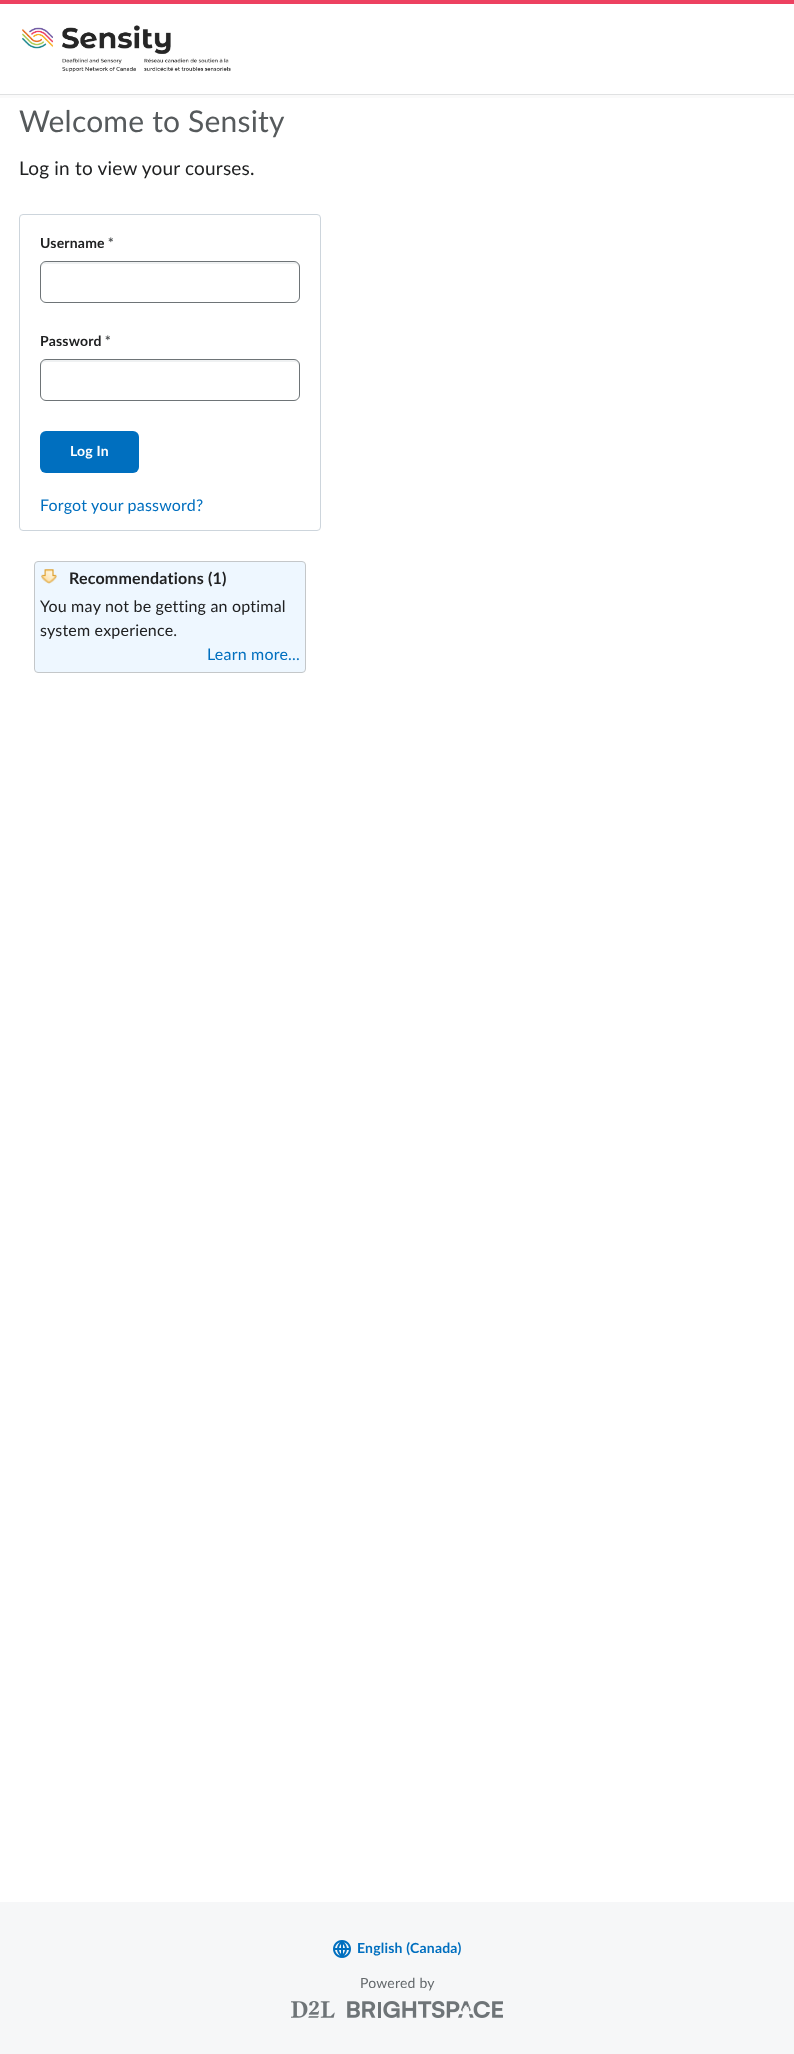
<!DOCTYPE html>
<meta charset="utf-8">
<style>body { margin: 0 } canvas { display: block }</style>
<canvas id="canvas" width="794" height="2054"></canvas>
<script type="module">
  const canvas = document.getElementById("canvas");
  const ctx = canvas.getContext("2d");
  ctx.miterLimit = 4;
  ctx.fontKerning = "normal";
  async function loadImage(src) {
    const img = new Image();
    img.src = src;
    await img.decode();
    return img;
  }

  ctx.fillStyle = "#ffffff";
  ctx.fillRect(0, 0, 794, 2054);
  ctx.fillStyle = "#fafafa";
  ctx.fillRect(0, 95, 794, 3);
  ctx.fillStyle = "#e0e1e2";
  ctx.fillRect(0, 94, 794, 1);
  ctx.fillStyle = "#ed4160";
  ctx.fillRect(0, 0, 794, 4);
  ctx.drawImage(await loadImage("img1.png"), 22, 25, 209, 47);
  ctx.letterSpacing = "0.2px";
  ctx.font = "30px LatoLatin";
  ctx.fillStyle = "#565a5c";
  ctx.fillText("Welcome to Sensity", 19, 132);
  ctx.font = "19px LatoLatin";
  ctx.fillStyle = "#202122";
  ctx.fillText("Log in to view your courses.", 19, 175);
  ctx.beginPath();
  ctx.roundRect(19.5, 214.5, 301, 316, 3.5);
  ctx.strokeStyle = "#cdd5dc";
  ctx.stroke();
  ctx.font = "bold 14px LatoLatin";
  ctx.fillText("Username", 40, 248);
  ctx.drawImage(await loadImage("img2.png"), 108, 237, 5, 6);
  ctx.fillStyle = "#eff1f2";
  ctx.beginPath();
  ctx.moveTo(46, 264);
  ctx.lineTo(294, 264);
  ctx.bezierCurveTo(297, 264, 299, 266, 299, 269);
  ctx.lineTo(299, 267);
  ctx.bezierCurveTo(299, 264, 297, 262, 294, 262);
  ctx.lineTo(46, 262);
  ctx.bezierCurveTo(43, 262, 41, 264, 41, 267);
  ctx.lineTo(41, 269);
  ctx.bezierCurveTo(41, 266, 43, 264, 46, 264);
  ctx.closePath();
  ctx.fill();
  ctx.beginPath();
  ctx.roundRect(40.5, 261.5, 259, 41, 5.5);
  ctx.strokeStyle = "#6e7477";
  ctx.stroke();
  ctx.fillStyle = "#202122";
  ctx.fillText("Password", 40, 346);
  ctx.drawImage(await loadImage("img2.png"), 105, 335, 5, 6);
  ctx.fillStyle = "#eff1f2";
  ctx.beginPath();
  ctx.moveTo(46, 362);
  ctx.lineTo(294, 362);
  ctx.bezierCurveTo(297, 362, 299, 364, 299, 367);
  ctx.lineTo(299, 365);
  ctx.bezierCurveTo(299, 362, 297, 360, 294, 360);
  ctx.lineTo(46, 360);
  ctx.bezierCurveTo(43, 360, 41, 362, 41, 365);
  ctx.lineTo(41, 367);
  ctx.bezierCurveTo(41, 364, 43, 362, 46, 362);
  ctx.closePath();
  ctx.fill();
  ctx.beginPath();
  ctx.roundRect(40.5, 359.5, 259, 41, 5.5);
  ctx.stroke();
  ctx.fillStyle = "#006fbf";
  ctx.beginPath();
  ctx.roundRect(40, 431, 99, 42, 6);
  ctx.fill();
  ctx.fillStyle = "#ffffff";
  ctx.fillText("Log In", 70, 456);
  ctx.font = "16px LatoLatin";
  ctx.fillStyle = "#006fbf";
  ctx.fillText("Forgot your password?", 40, 511);
  ctx.drawImage(await loadImage("img3.png"), 34, 561, 272, 112);
  ctx.fillStyle = "#f6f7f8";
  ctx.fillRect(0, 1902, 794, 152);
  ctx.drawImage(await loadImage("img4.png"), 333, 1940, 18, 18);
  ctx.font = "bold 14px LatoLatin";
  ctx.fillStyle = "#006fbf";
  ctx.fillText("English (Canada)", 357, 1953);
  ctx.font = "14px LatoLatin";
  ctx.fillStyle = "#63686b";
  ctx.fillText("Powered by", 360, 1988);
  ctx.drawImage(await loadImage("img5.png"), 291, 2001, 212, 17);
</script>
